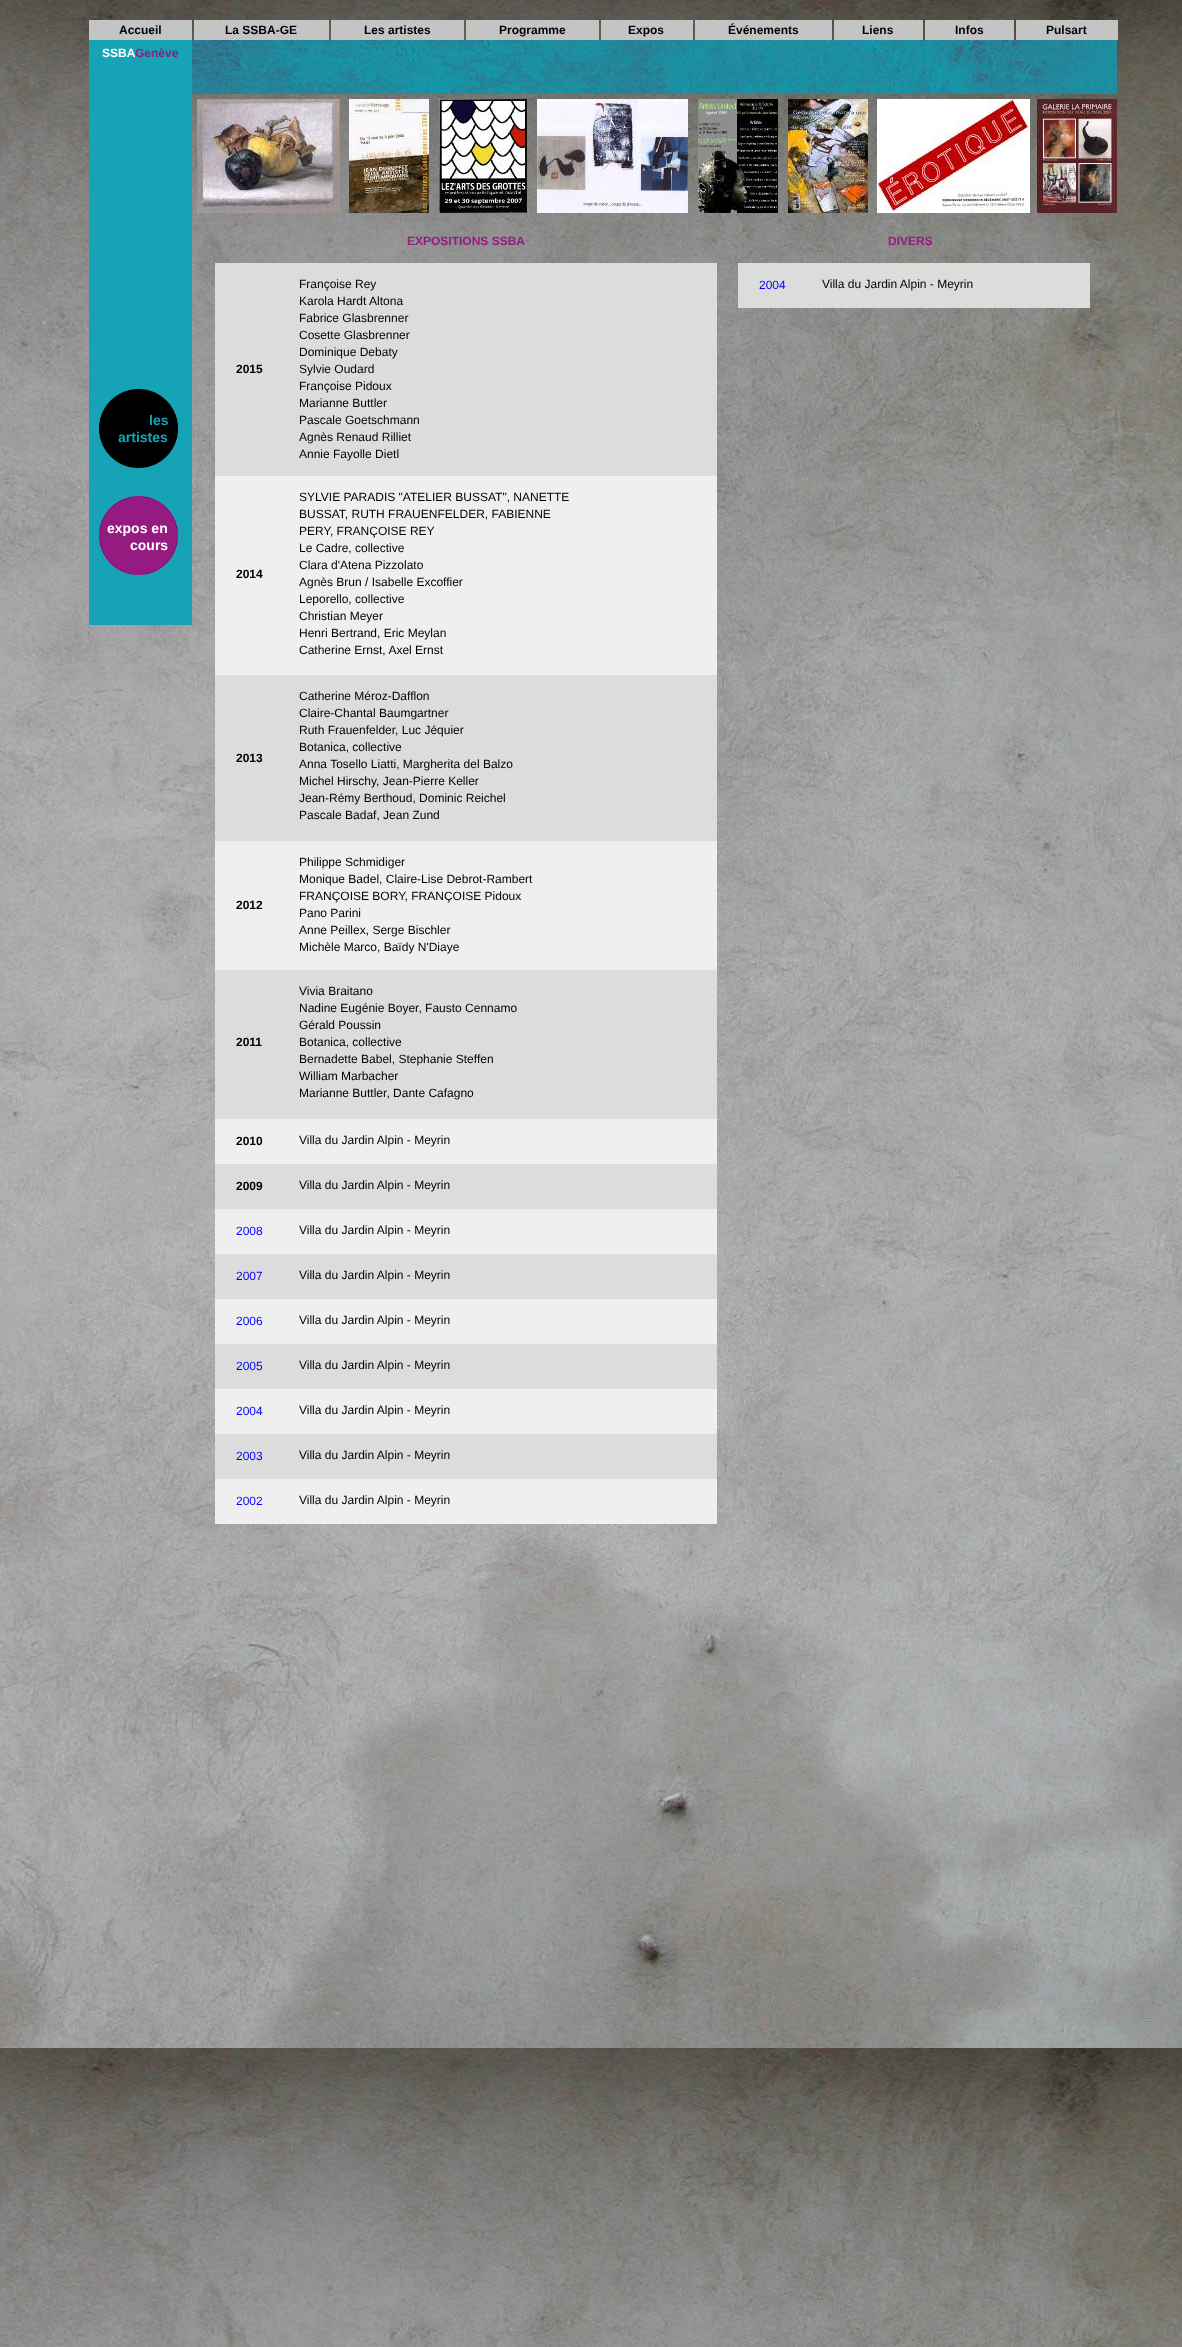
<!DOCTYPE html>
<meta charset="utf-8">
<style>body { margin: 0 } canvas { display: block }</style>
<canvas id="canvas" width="1182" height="2347"></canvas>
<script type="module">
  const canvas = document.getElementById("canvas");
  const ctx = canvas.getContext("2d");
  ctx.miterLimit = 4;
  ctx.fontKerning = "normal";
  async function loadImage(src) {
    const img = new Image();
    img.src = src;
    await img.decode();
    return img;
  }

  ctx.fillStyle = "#ffffff";
  ctx.fillRect(0, 0, 1182, 2347);
  ctx.drawImage(await loadImage("img1.png"), 0, 0, 1182, 2347);
  ctx.fillStyle = "#c4c4c4";
  ctx.fillRect(89, 20, 103, 20);
  ctx.font = "bold 12px Liberation Sans";
  ctx.fillStyle = "#000000";
  ctx.fillText("Accueil", 119, 34);
  ctx.fillStyle = "#c4c4c4";
  ctx.fillRect(194, 20, 135, 20);
  ctx.fillStyle = "#000000";
  ctx.fillText("La SSBA-GE", 225, 34);
  ctx.fillStyle = "#c4c4c4";
  ctx.fillRect(331, 20, 133, 20);
  ctx.fillStyle = "#000000";
  ctx.fillText("Les artistes", 364, 34);
  ctx.fillStyle = "#c4c4c4";
  ctx.fillRect(466, 20, 133, 20);
  ctx.fillStyle = "#000000";
  ctx.fillText("Programme", 499, 34);
  ctx.fillStyle = "#c4c4c4";
  ctx.fillRect(601, 20, 92, 20);
  ctx.fillStyle = "#000000";
  ctx.fillText("Expos", 628, 34);
  ctx.fillStyle = "#c4c4c4";
  ctx.fillRect(695, 20, 137, 20);
  ctx.fillStyle = "#000000";
  ctx.fillText("Événements", 728, 34);
  ctx.fillStyle = "#c4c4c4";
  ctx.fillRect(834, 20, 89, 20);
  ctx.fillStyle = "#000000";
  ctx.fillText("Liens", 862, 34);
  ctx.fillStyle = "#c4c4c4";
  ctx.fillRect(925, 20, 89, 20);
  ctx.fillStyle = "#000000";
  ctx.fillText("Infos", 955, 34);
  ctx.fillStyle = "#c4c4c4";
  ctx.fillRect(1016, 20, 102, 20);
  ctx.fillStyle = "#000000";
  ctx.fillText("Pulsart", 1046, 34);
  ctx.fillStyle = "#17a3b6";
  ctx.fillRect(89, 40, 103, 585);
  ctx.fillStyle = "#ffffff";
  ctx.fillText("SSBA", 102, 57);
  ctx.fillStyle = "#951b81";
  ctx.fillText("Genève", 135, 57);
  ctx.drawImage(await loadImage("img2.png"), 99, 389, 79, 79);
  ctx.font = "bold 14px Liberation Sans";
  ctx.fillStyle = "#17a3b6";
  ctx.fillText("les", 149, 425);
  ctx.fillText("artistes", 118, 442);
  ctx.drawImage(await loadImage("img3.png"), 99, 496, 79, 79);
  ctx.fillStyle = "#ffffff";
  ctx.fillText("expos en", 107, 533);
  ctx.fillText("cours", 130, 550);
  ctx.drawImage(await loadImage("img4.png"), 192, 40, 925, 54);
  ctx.drawImage(await loadImage("img5.png"), 197, 99, 143, 114);
  ctx.drawImage(await loadImage("img6.png"), 349, 99, 80, 114);
  ctx.drawImage(await loadImage("img7.png"), 439, 99, 88, 114);
  ctx.drawImage(await loadImage("img8.png"), 537, 99, 151, 114);
  ctx.drawImage(await loadImage("img9.png"), 698, 99, 80, 114);
  ctx.drawImage(await loadImage("img10.png"), 788, 99, 80, 114);
  ctx.drawImage(await loadImage("img11.png"), 877, 99, 153, 114);
  ctx.drawImage(await loadImage("img12.png"), 1037, 99, 80, 114);
  ctx.font = "bold 12px Liberation Sans";
  ctx.fillStyle = "#951b81";
  ctx.fillText("EXPOSITIONS SSBA", 407, 245);
  ctx.fillText("DIVERS", 888, 245);
  ctx.fillStyle = "#dcdcdc";
  ctx.fillRect(215, 263, 502, 213);
  ctx.fillStyle = "#000000";
  ctx.fillText("2015", 236, 373);
  ctx.font = "12px Liberation Sans";
  ctx.fillText("Françoise Rey", 299, 288);
  ctx.fillText("Karola Hardt Altona", 299, 305);
  ctx.fillText("Fabrice Glasbrenner", 299, 322);
  ctx.fillText("Cosette Glasbrenner", 299, 339);
  ctx.fillText("Dominique Debaty", 299, 356);
  ctx.fillText("Sylvie Oudard", 299, 373);
  ctx.fillText("Françoise Pidoux", 299, 390);
  ctx.fillText("Marianne Buttler", 299, 407);
  ctx.fillText("Pascale Goetschmann", 299, 424);
  ctx.fillText("Agnès Renaud Rilliet", 299, 441);
  ctx.fillText("Annie Fayolle Dietl", 299, 458);
  ctx.fillStyle = "#dcdcdc";
  ctx.fillRect(738, 263, 352, 45);
  ctx.fillStyle = "#0000ff";
  ctx.fillText("2004", 759, 289);
  ctx.fillStyle = "#000000";
  ctx.fillText("Villa du Jardin Alpin - Meyrin", 822, 288);
  ctx.fillStyle = "#efefef";
  ctx.fillRect(215, 476, 502, 199);
  ctx.font = "bold 12px Liberation Sans";
  ctx.fillStyle = "#000000";
  ctx.fillText("2014", 236, 578);
  ctx.font = "12px Liberation Sans";
  ctx.fillText("SYLVIE PARADIS \"ATELIER BUSSAT\", NANETTE", 299, 501);
  ctx.fillText("BUSSAT, RUTH FRAUENFELDER, FABIENNE", 299, 518);
  ctx.fillText("PERY, FRANÇOISE REY", 299, 535);
  ctx.fillText("Le Cadre, collective", 299, 552);
  ctx.fillText("Clara d'Atena Pizzolato", 299, 569);
  ctx.fillText("Agnès Brun / Isabelle Excoffier", 299, 586);
  ctx.fillText("Leporello, collective", 299, 603);
  ctx.fillText("Christian Meyer", 299, 620);
  ctx.fillText("Henri Bertrand, Eric Meylan", 299, 637);
  ctx.fillText("Catherine Ernst, Axel Ernst", 299, 654);
  ctx.fillStyle = "#dcdcdc";
  ctx.fillRect(215, 675, 502, 166);
  ctx.font = "bold 12px Liberation Sans";
  ctx.fillStyle = "#000000";
  ctx.fillText("2013", 236, 762);
  ctx.font = "12px Liberation Sans";
  ctx.fillText("Catherine Méroz-Dafflon", 299, 700);
  ctx.fillText("Claire-Chantal Baumgartner", 299, 717);
  ctx.fillText("Ruth Frauenfelder, Luc Jéquier", 299, 734);
  ctx.fillText("Botanica, collective", 299, 751);
  ctx.fillText("Anna Tosello Liatti, Margherita del Balzo", 299, 768);
  ctx.fillText("Michel Hirschy, Jean-Pierre Keller", 299, 785);
  ctx.fillText("Jean-Rémy Berthoud, Dominic Reichel", 299, 802);
  ctx.fillText("Pascale Badaf, Jean Zund", 299, 819);
  ctx.fillStyle = "#efefef";
  ctx.fillRect(215, 841, 502, 129);
  ctx.font = "bold 12px Liberation Sans";
  ctx.fillStyle = "#000000";
  ctx.fillText("2012", 236, 909);
  ctx.font = "12px Liberation Sans";
  ctx.fillText("Philippe Schmidiger", 299, 866);
  ctx.fillText("Monique Badel, Claire-Lise Debrot-Rambert", 299, 883);
  ctx.fillText("FRANÇOISE BORY, FRANÇOISE Pidoux", 299, 900);
  ctx.fillText("Pano Parini", 299, 917);
  ctx.fillText("Anne Peillex, Serge Bischler", 299, 934);
  ctx.fillText("Michèle Marco, Baïdy N'Diaye", 299, 951);
  ctx.fillStyle = "#dcdcdc";
  ctx.fillRect(215, 970, 502, 149);
  ctx.font = "bold 12px Liberation Sans";
  ctx.fillStyle = "#000000";
  ctx.fillText("2011", 236, 1046);
  ctx.font = "12px Liberation Sans";
  ctx.fillText("Vivia Braitano", 299, 995);
  ctx.fillText("Nadine Eugénie Boyer, Fausto Cennamo", 299, 1012);
  ctx.fillText("Gérald Poussin", 299, 1029);
  ctx.fillText("Botanica, collective", 299, 1046);
  ctx.fillText("Bernadette Babel, Stephanie Steffen", 299, 1063);
  ctx.fillText("William Marbacher", 299, 1080);
  ctx.fillText("Marianne Buttler, Dante Cafagno", 299, 1097);
  ctx.fillStyle = "#efefef";
  ctx.fillRect(215, 1119, 502, 45);
  ctx.font = "bold 12px Liberation Sans";
  ctx.fillStyle = "#000000";
  ctx.fillText("2010", 236, 1145);
  ctx.font = "12px Liberation Sans";
  ctx.fillText("Villa du Jardin Alpin - Meyrin", 299, 1144);
  ctx.fillStyle = "#dcdcdc";
  ctx.fillRect(215, 1164, 502, 45);
  ctx.font = "bold 12px Liberation Sans";
  ctx.fillStyle = "#000000";
  ctx.fillText("2009", 236, 1190);
  ctx.font = "12px Liberation Sans";
  ctx.fillText("Villa du Jardin Alpin - Meyrin", 299, 1189);
  ctx.fillStyle = "#efefef";
  ctx.fillRect(215, 1209, 502, 45);
  ctx.fillStyle = "#0000ff";
  ctx.fillText("2008", 236, 1235);
  ctx.fillStyle = "#000000";
  ctx.fillText("Villa du Jardin Alpin - Meyrin", 299, 1234);
  ctx.fillStyle = "#dcdcdc";
  ctx.fillRect(215, 1254, 502, 45);
  ctx.fillStyle = "#0000ff";
  ctx.fillText("2007", 236, 1280);
  ctx.fillStyle = "#000000";
  ctx.fillText("Villa du Jardin Alpin - Meyrin", 299, 1279);
  ctx.fillStyle = "#efefef";
  ctx.fillRect(215, 1299, 502, 45);
  ctx.fillStyle = "#0000ff";
  ctx.fillText("2006", 236, 1325);
  ctx.fillStyle = "#000000";
  ctx.fillText("Villa du Jardin Alpin - Meyrin", 299, 1324);
  ctx.fillStyle = "#dcdcdc";
  ctx.fillRect(215, 1344, 502, 45);
  ctx.fillStyle = "#0000ff";
  ctx.fillText("2005", 236, 1370);
  ctx.fillStyle = "#000000";
  ctx.fillText("Villa du Jardin Alpin - Meyrin", 299, 1369);
  ctx.fillStyle = "#efefef";
  ctx.fillRect(215, 1389, 502, 45);
  ctx.fillStyle = "#0000ff";
  ctx.fillText("2004", 236, 1415);
  ctx.fillStyle = "#000000";
  ctx.fillText("Villa du Jardin Alpin - Meyrin", 299, 1414);
  ctx.fillStyle = "#dcdcdc";
  ctx.fillRect(215, 1434, 502, 45);
  ctx.fillStyle = "#0000ff";
  ctx.fillText("2003", 236, 1460);
  ctx.fillStyle = "#000000";
  ctx.fillText("Villa du Jardin Alpin - Meyrin", 299, 1459);
  ctx.fillStyle = "#efefef";
  ctx.fillRect(215, 1479, 502, 45);
  ctx.fillStyle = "#0000ff";
  ctx.fillText("2002", 236, 1505);
  ctx.fillStyle = "#000000";
  ctx.fillText("Villa du Jardin Alpin - Meyrin", 299, 1504);
</script>
